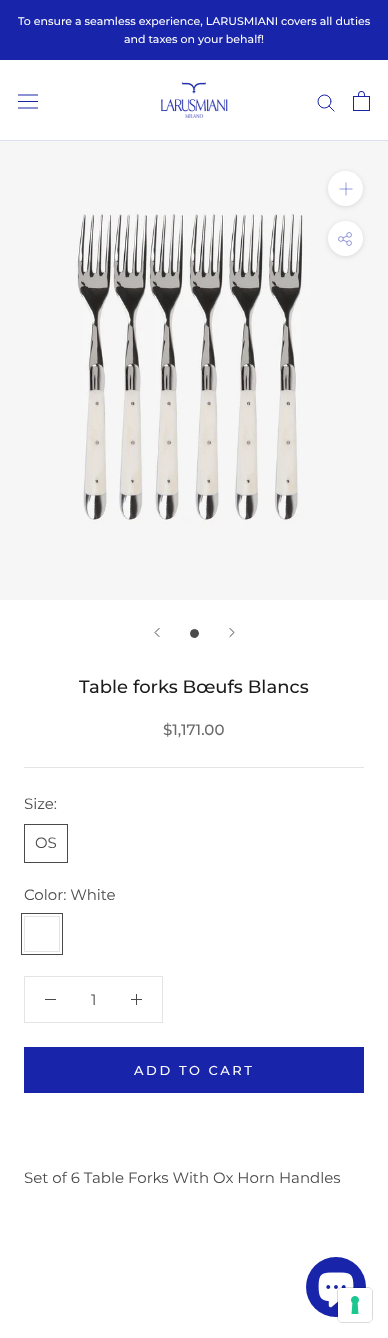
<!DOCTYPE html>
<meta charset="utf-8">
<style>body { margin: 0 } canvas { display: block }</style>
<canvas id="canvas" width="388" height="1338"></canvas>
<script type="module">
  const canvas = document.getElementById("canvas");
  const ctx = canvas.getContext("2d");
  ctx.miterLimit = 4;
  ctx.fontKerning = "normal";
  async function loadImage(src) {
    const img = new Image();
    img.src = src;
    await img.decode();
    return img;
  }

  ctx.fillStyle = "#ffffff";
  ctx.fillRect(0, 0, 388, 1338);
  ctx.fillStyle = "#1825aa";
  ctx.fillRect(0, 0, 388, 60);
  ctx.font = "500 11px Montserrat";
  ctx.fillStyle = "#ffffff";
  ctx.fillText("To ensure a seamless experience, LARUSMIANI covers all duties", 18, 25);
  ctx.fillText("and taxes on your behalf!", 124, 43);
  ctx.fillStyle = "#dcdef2";
  ctx.fillRect(0, 140, 388, 1);
  ctx.drawImage(await loadImage("img1.png"), 18, 94, 20, 15);
  ctx.drawImage(await loadImage("img2.png"), 161, 82, 67, 36);
  ctx.beginPath();
  ctx.moveTo(334, 111);
  ctx.lineTo(329, 106);
  ctx.strokeStyle = "#1825aa";
  ctx.lineCap = "square";
  ctx.stroke();
  ctx.beginPath();
  ctx.arc(324.5, 101.5, 6.5, 0, Math.PI * 2);
  ctx.stroke();
  ctx.drawImage(await loadImage("img3.png"), 353, 91, 17, 20);
  ctx.drawImage(await loadImage("img4.png"), 0, 141, 388, 459);
  ctx.fillStyle = "rgba(54, 54, 54, 0.15)";
  ctx.filter = "blur(2.5px)";
  ctx.beginPath();
  ctx.roundRect(328, 172, 35, 35, 17.5);
  ctx.fill();
  ctx.filter = "none";
  ctx.fillStyle = "#ffffff";
  ctx.beginPath();
  ctx.arc(345.5, 188.5, 17.5, 0, Math.PI * 2);
  ctx.fill();
  ctx.beginPath();
  ctx.moveTo(346, 183);
  ctx.lineTo(346, 195);
  ctx.strokeStyle = "#8c92d5";
  ctx.lineWidth = 0.9;
  ctx.stroke();
  ctx.beginPath();
  ctx.moveTo(340, 189);
  ctx.lineTo(352, 189);
  ctx.strokeStyle = "rgba(24, 37, 170, 0.5)";
  ctx.stroke();
  ctx.fillStyle = "rgba(54, 54, 54, 0.15)";
  ctx.filter = "blur(2.5px)";
  ctx.beginPath();
  ctx.roundRect(328, 222, 35, 35, 17.5);
  ctx.fill();
  ctx.filter = "none";
  ctx.fillStyle = "#ffffff";
  ctx.beginPath();
  ctx.arc(345.5, 238.5, 17.5, 0, Math.PI * 2);
  ctx.fill();
  ctx.drawImage(await loadImage("img5.png"), 338, 232, 14, 14);
  ctx.beginPath();
  ctx.moveTo(159, 636.5);
  ctx.lineTo(155, 632.5);
  ctx.lineTo(159, 628.5);
  ctx.strokeStyle = "#4a4a4a";
  ctx.lineWidth = 1;
  ctx.stroke();
  ctx.fillStyle = "#4a4a4a";
  ctx.beginPath();
  ctx.arc(194.5, 633.5, 4, 0, Math.PI * 2);
  ctx.fill();
  ctx.stroke();
  ctx.beginPath();
  ctx.moveTo(230, 636.5);
  ctx.lineTo(234, 632.5);
  ctx.lineTo(230, 628.5);
  ctx.stroke();
  ctx.fillStyle = "#e4e4e4";
  ctx.fillRect(24, 767, 340, 1);
  ctx.font = "500 18px Montserrat";
  ctx.fillStyle = "#1c1b1b";
  ctx.fillText("Table forks Bœufs Blancs", 79, 693);
  ctx.font = "500 15px Montserrat";
  ctx.fillStyle = "#6a6a6a";
  ctx.fillText("$1,171.00", 163, 735);
  ctx.font = "15px Montserrat";
  ctx.fillStyle = "#4a4a4a";
  ctx.fillText("Size:", 24, 809);
  ctx.strokeRect(24.5, 824.5, 43, 38);
  ctx.fillText("OS", 35, 848);
  ctx.fillText("Color: White", 24, 900);
  ctx.strokeStyle = "#e4e4e4";
  ctx.strokeRect(24.5, 916.5, 35, 35);
  ctx.strokeStyle = "#4a4a4a";
  ctx.strokeRect(21.5, 913.5, 41, 41);
  ctx.strokeStyle = "#e4e4e4";
  ctx.strokeRect(24.5, 976.5, 138, 46);
  ctx.fillRect(45, 999, 11, 1);
  ctx.fillText("1", 91, 1005);
  ctx.fillRect(136, 994, 1, 11);
  ctx.fillRect(131, 999, 11, 1);
  ctx.strokeStyle = "#1825aa";
  ctx.strokeRect(24.5, 1047.5, 339, 45);
  ctx.fillStyle = "#1825aa";
  ctx.fillRect(25, 1048, 338, 44);
  ctx.letterSpacing = "2.6px";
  ctx.font = "500 13px Montserrat";
  ctx.fillStyle = "#ffffff";
  ctx.fillText("ADD TO CART", 134, 1075);
  ctx.letterSpacing = "0px";
  ctx.font = "15px Montserrat";
  ctx.fillStyle = "#4a4a4a";
  ctx.fillText("Set of 6 Table Forks With Ox Horn Handles", 24, 1183);
  ctx.fillStyle = "#1825aa";
  ctx.beginPath();
  ctx.arc(336, 1287, 30, 0, Math.PI * 2);
  ctx.fill();
  ctx.drawImage(await loadImage("img6.png"), 318, 1272, 36, 36);
  ctx.beginPath();
  ctx.roundRect(337.5, 1287.5, 35, 35, 4.5);
  ctx.strokeStyle = "rgba(0, 0, 0, 0.15)";
  ctx.stroke();
  ctx.fillStyle = "#ffffff";
  ctx.beginPath();
  ctx.roundRect(338, 1288, 34, 34, 4);
  ctx.fill();
  ctx.drawImage(await loadImage("img7.png"), 351, 1296, 8, 18);
</script>
